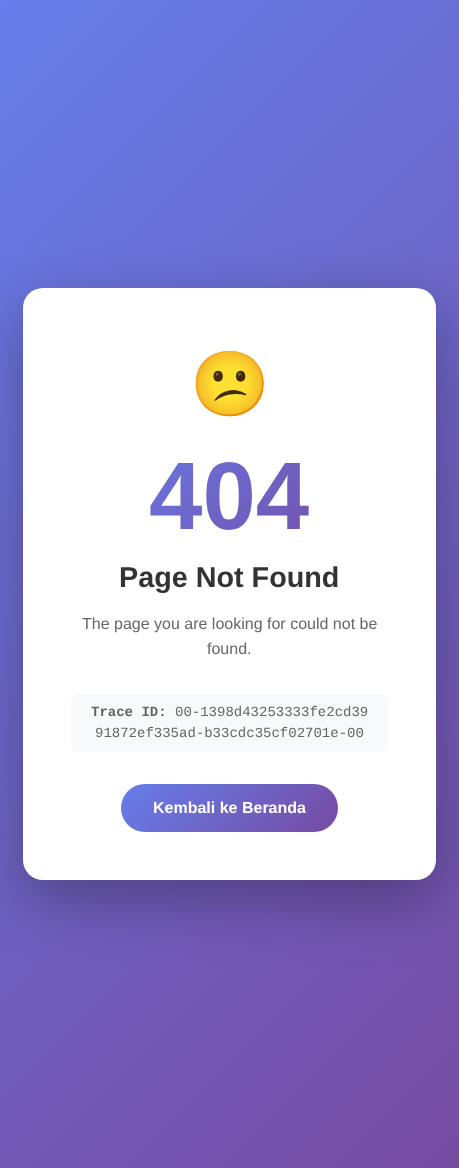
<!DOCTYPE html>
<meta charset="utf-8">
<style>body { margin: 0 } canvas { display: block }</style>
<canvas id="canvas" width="459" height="1168"></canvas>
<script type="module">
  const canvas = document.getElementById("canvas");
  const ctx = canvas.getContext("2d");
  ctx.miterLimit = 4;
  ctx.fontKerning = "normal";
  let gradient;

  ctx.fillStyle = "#ffffff";
  ctx.fillRect(0, 0, 459, 1168);
  gradient = ctx.createLinearGradient(-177, 177, 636, 991);
  gradient.addColorStop(0, "#667eea");
  gradient.addColorStop(1, "#764ba2");
  ctx.fillStyle = gradient;
  ctx.fillRect(0, 0, 459, 1168);
  ctx.fillStyle = "rgba(0, 0, 0, 0.3)";
  ctx.filter = "blur(30px)";
  ctx.beginPath();
  ctx.roundRect(23, 308, 413, 592, 20);
  ctx.fill();
  ctx.filter = "none";
  ctx.fillStyle = "#ffffff";
  ctx.beginPath();
  ctx.roundRect(23, 288, 413, 592, 20);
  ctx.fill();
  ctx.font = "64px Noto Color Emoji";
  ctx.fillStyle = "#212529";
  ctx.fillText("😕", 190, 406);
  ctx.font = "bold 96px Liberation Sans";
  gradient = ctx.createLinearGradient(126, 393, 333, 599);
  gradient.addColorStop(0, "#667eea");
  gradient.addColorStop(1, "#764ba2");
  ctx.fillStyle = gradient;
  ctx.fillText("404", 149, 529);
  ctx.font = "bold 28.75px Liberation Sans";
  ctx.fillStyle = "#333333";
  ctx.fillText("Page Not Found", 119, 587);
  ctx.font = "16px Liberation Sans";
  ctx.fillStyle = "#666666";
  ctx.fillText("The page you are looking for could not be", 82, 629);
  ctx.fillText("found.", 207, 654);
  ctx.fillStyle = "#f8f9fa";
  ctx.beginPath();
  ctx.roundRect(71, 694, 317, 58, 8);
  ctx.fill();
  ctx.font = "bold 14px Liberation Mono";
  ctx.fillStyle = "#666666";
  ctx.fillText("Trace ID:", 91, 716);
  ctx.font = "14px Liberation Mono";
  ctx.fillText("00-1398d43253333fe2cd39", 175, 716);
  ctx.fillText("91872ef335ad-b33cdc35cf02701e-00", 95, 737);
  gradient = ctx.createLinearGradient(163, 742, 296, 874);
  gradient.addColorStop(0, "#667eea");
  gradient.addColorStop(1, "#764ba2");
  ctx.fillStyle = gradient;
  ctx.beginPath();
  ctx.roundRect(121, 784, 217, 48, 24);
  ctx.fill();
  ctx.font = "bold 16px Liberation Sans";
  ctx.fillStyle = "#ffffff";
  ctx.fillText("Kembali ke Beranda", 153, 813);
</script>
